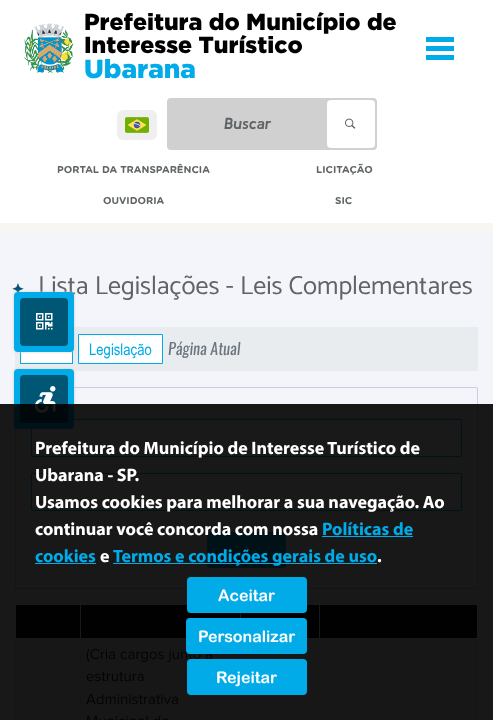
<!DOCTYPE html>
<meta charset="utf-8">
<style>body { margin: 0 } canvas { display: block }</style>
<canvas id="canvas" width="493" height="720"></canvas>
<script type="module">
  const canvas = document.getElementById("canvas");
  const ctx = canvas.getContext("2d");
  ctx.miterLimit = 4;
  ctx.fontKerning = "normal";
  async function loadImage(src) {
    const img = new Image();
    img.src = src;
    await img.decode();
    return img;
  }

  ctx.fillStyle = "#f7f6f2";
  ctx.fillRect(0, 0, 493, 720);
  ctx.fillStyle = "#ffffff";
  ctx.fillRect(0, 0, 493, 223);
  ctx.drawImage(await loadImage("img1.png"), 24, 23, 50, 50);
  ctx.font = "900 23.2px Gotham";
  ctx.fillStyle = "#000000";
  ctx.fillText("Prefeitura do Município de", 84, 30);
  ctx.fillText("Interesse Turístico", 84, 53);
  ctx.font = "900 26.1px Gotham";
  ctx.fillStyle = "#00abe8";
  ctx.fillText("Ubarana", 84, 78);
  ctx.fillRect(426, 37, 28, 5);
  ctx.fillRect(426, 46, 28, 5);
  ctx.fillRect(426, 55, 28, 5);
  ctx.fillStyle = "#efefef";
  ctx.beginPath();
  ctx.roundRect(117, 110, 40, 30, 6);
  ctx.fill();
  ctx.drawImage(await loadImage("img2.png"), 125, 117, 24, 16);
  ctx.fillStyle = "#d0d0d0";
  ctx.beginPath();
  ctx.roundRect(167, 98, 210, 52, 4);
  ctx.fill();
  ctx.font = "italic bold 16px Kulim Park";
  ctx.fillStyle = "#606466";
  ctx.fillText("Buscar", 224, 129);
  ctx.fillStyle = "#ffffff";
  ctx.beginPath();
  ctx.roundRect(327, 100, 48, 48, 4);
  ctx.fill();
  ctx.drawImage(await loadImage("img3.png"), 345, 118, 11, 11);
  ctx.font = "bold 10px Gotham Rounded";
  ctx.fillStyle = "#606466";
  ctx.fillText("PORTAL DA TRANSPARÊNCIA", 57, 173);
  ctx.fillText("LICITAÇÃO", 316, 173);
  ctx.fillText("OUVIDORIA", 103, 204);
  ctx.fillText("SIC", 335, 204);
  ctx.fillStyle = "#f4f5fa";
  ctx.fillRect(0, 233, 493, 487);
  ctx.drawImage(await loadImage("img4.png"), 12, 283, 12, 10);
  ctx.font = "26.1px Catamaran";
  ctx.fillStyle = "#606466";
  ctx.fillText("Lista Legislações - Leis Complementares", 38, 294);
  ctx.fillStyle = "#e9ecef";
  ctx.fillRect(15, 327, 463, 44);
  ctx.fillStyle = "#ffffff";
  ctx.fillRect(21, 351, 51, 12);
  ctx.strokeStyle = "#00abe8";
  ctx.strokeRect(20.5, 334.5, 52, 29);
  ctx.beginPath();
  ctx.rect(78.5, 334.5, 84, 29);
  ctx.fill();
  ctx.stroke();
  ctx.font = "16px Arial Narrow";
  ctx.fillStyle = "#00abe8";
  ctx.fillText("Legislação", 89, 355);
  ctx.font = "italic 16px Oswald";
  ctx.fillStyle = "#6c757d";
  ctx.fillText("Página Atual", 168, 355);
  ctx.beginPath();
  ctx.roundRect(15.5, 387.5, 462, 201, 1.5);
  ctx.strokeStyle = "#c9cee1";
  ctx.stroke();
  ctx.fillStyle = "#ffffff";
  ctx.beginPath();
  ctx.roundRect(31.5, 419.5, 430, 37, 1.5);
  ctx.fill();
  ctx.strokeStyle = "#00abe8";
  ctx.stroke();
  ctx.beginPath();
  ctx.roundRect(31.5, 473.5, 430, 37, 1.5);
  ctx.fill();
  ctx.stroke();
  ctx.fillStyle = "#00abe8";
  ctx.beginPath();
  ctx.roundRect(207, 532, 79, 36, 4);
  ctx.fill();
  ctx.fillStyle = "#dee2e6";
  ctx.fillRect(477, 639, 1, 81);
  ctx.fillRect(15, 639, 1, 81);
  ctx.fillStyle = "#111111";
  ctx.fillRect(16, 605, 64, 33);
  ctx.fillStyle = "#ffffff";
  ctx.fillRect(80, 604, 107, 1);
  ctx.fillStyle = "#e8e9ee";
  ctx.fillRect(16, 639, 461, 81);
  ctx.fillStyle = "#dee2e6";
  ctx.fillRect(80, 638, 1, 82);
  ctx.fillStyle = "#ffffff";
  ctx.fillRect(80, 638, 106, 1);
  ctx.fillRect(80, 604, 1, 35);
  ctx.fillRect(15, 604, 66, 1);
  ctx.fillRect(15, 638, 66, 1);
  ctx.fillRect(15, 604, 1, 35);
  ctx.fillStyle = "#111111";
  ctx.fillRect(81, 605, 159, 33);
  ctx.fillRect(241, 605, 78, 33);
  ctx.fillStyle = "#ffffff";
  ctx.fillRect(319, 604, 159, 1);
  ctx.fillRect(477, 604, 1, 35);
  ctx.fillStyle = "#dee2e6";
  ctx.fillRect(319, 638, 1, 82);
  ctx.fillStyle = "#ffffff";
  ctx.fillRect(319, 638, 159, 1);
  ctx.fillRect(319, 604, 1, 35);
  ctx.fillRect(307, 604, 13, 1);
  ctx.fillRect(307, 638, 13, 1);
  ctx.fillRect(240, 613, 1, 5);
  ctx.fillStyle = "#111111";
  ctx.fillRect(320, 605, 157, 33);
  ctx.drawImage(await loadImage("img5.png"), 86, 648, 126, 14);
  ctx.drawImage(await loadImage("img6.png"), 86, 671, 58, 11);
  ctx.drawImage(await loadImage("img7.png"), 86, 694, 92, 11);
  ctx.drawImage(await loadImage("img8.png"), 87, 716, 82, 4);
  ctx.fillStyle = "#dee2e6";
  ctx.fillRect(240, 654, 1, 66);
  ctx.fillStyle = "#cbd0d6";
  ctx.filter = "blur(1.5px)";
  ctx.beginPath();
  ctx.roundRect(14, 369, 60, 60, 4);
  ctx.fill();
  ctx.filter = "none";
  ctx.fillStyle = "#00abe8";
  ctx.beginPath();
  ctx.roundRect(14, 369, 60, 60, 4);
  ctx.fill();
  ctx.fillStyle = "#005675";
  ctx.beginPath();
  ctx.roundRect(20, 375, 48, 48, 4);
  ctx.fill();
  ctx.drawImage(await loadImage("img10.png"), 34, 386, 22, 27);
  ctx.fillStyle = "rgba(0, 0, 0, 0.9)";
  ctx.fillRect(0, 404, 493, 316);
  ctx.font = "bold 18px Myriad";
  ctx.fillStyle = "#ffffff";
  ctx.fillText("Prefeitura do Município de Interesse Turístico de", 35, 454);
  ctx.fillText("Ubarana - SP.", 35, 481);
  ctx.fillText("Usamos cookies para melhorar a sua navegação. Ao", 35, 508);
  ctx.fillText("continuar você concorda com nossa", 35, 535);
  ctx.fillStyle = "#00abe8";
  ctx.fillText("Políticas de", 322, 535);
  ctx.fillRect(322, 536, 91, 1);
  ctx.fillText("cookies", 35, 562);
  ctx.fillRect(35, 563, 61, 1);
  ctx.fillStyle = "#ffffff";
  ctx.fillText("e", 100, 562);
  ctx.fillStyle = "#00abe8";
  ctx.fillRect(113, 563, 264, 1);
  ctx.fillText("Termos e condições gerais de uso", 113, 562);
  ctx.fillStyle = "#ffffff";
  ctx.fillText(".", 377, 562);
  ctx.fillStyle = "#00abe8";
  ctx.beginPath();
  ctx.roundRect(187, 577, 120, 36, 4);
  ctx.fill();
  ctx.font = "bold 16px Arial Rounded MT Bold";
  ctx.fillStyle = "#ffffff";
  ctx.fillText("Aceitar", 218, 601);
  ctx.fillStyle = "#00abe8";
  ctx.beginPath();
  ctx.roundRect(186, 618, 121, 36, 4);
  ctx.fill();
  ctx.fillStyle = "#ffffff";
  ctx.fillText("Personalizar", 198, 642);
  ctx.fillStyle = "#00abe8";
  ctx.beginPath();
  ctx.roundRect(187, 659, 120, 36, 4);
  ctx.fill();
  ctx.fillStyle = "#ffffff";
  ctx.fillText("Rejeitar", 216, 683);
  ctx.fillStyle = "#cbd0d6";
  ctx.filter = "blur(1.5px)";
  ctx.beginPath();
  ctx.roundRect(14, 292, 60, 60, 4);
  ctx.fill();
  ctx.filter = "none";
  ctx.fillStyle = "#00abe8";
  ctx.beginPath();
  ctx.roundRect(14, 292, 60, 60, 4);
  ctx.fill();
  ctx.fillStyle = "#005675";
  ctx.beginPath();
  ctx.roundRect(20, 298, 48, 48, 4);
  ctx.fill();
  ctx.drawImage(await loadImage("img9.png"), 36, 313, 17, 17);
</script>
